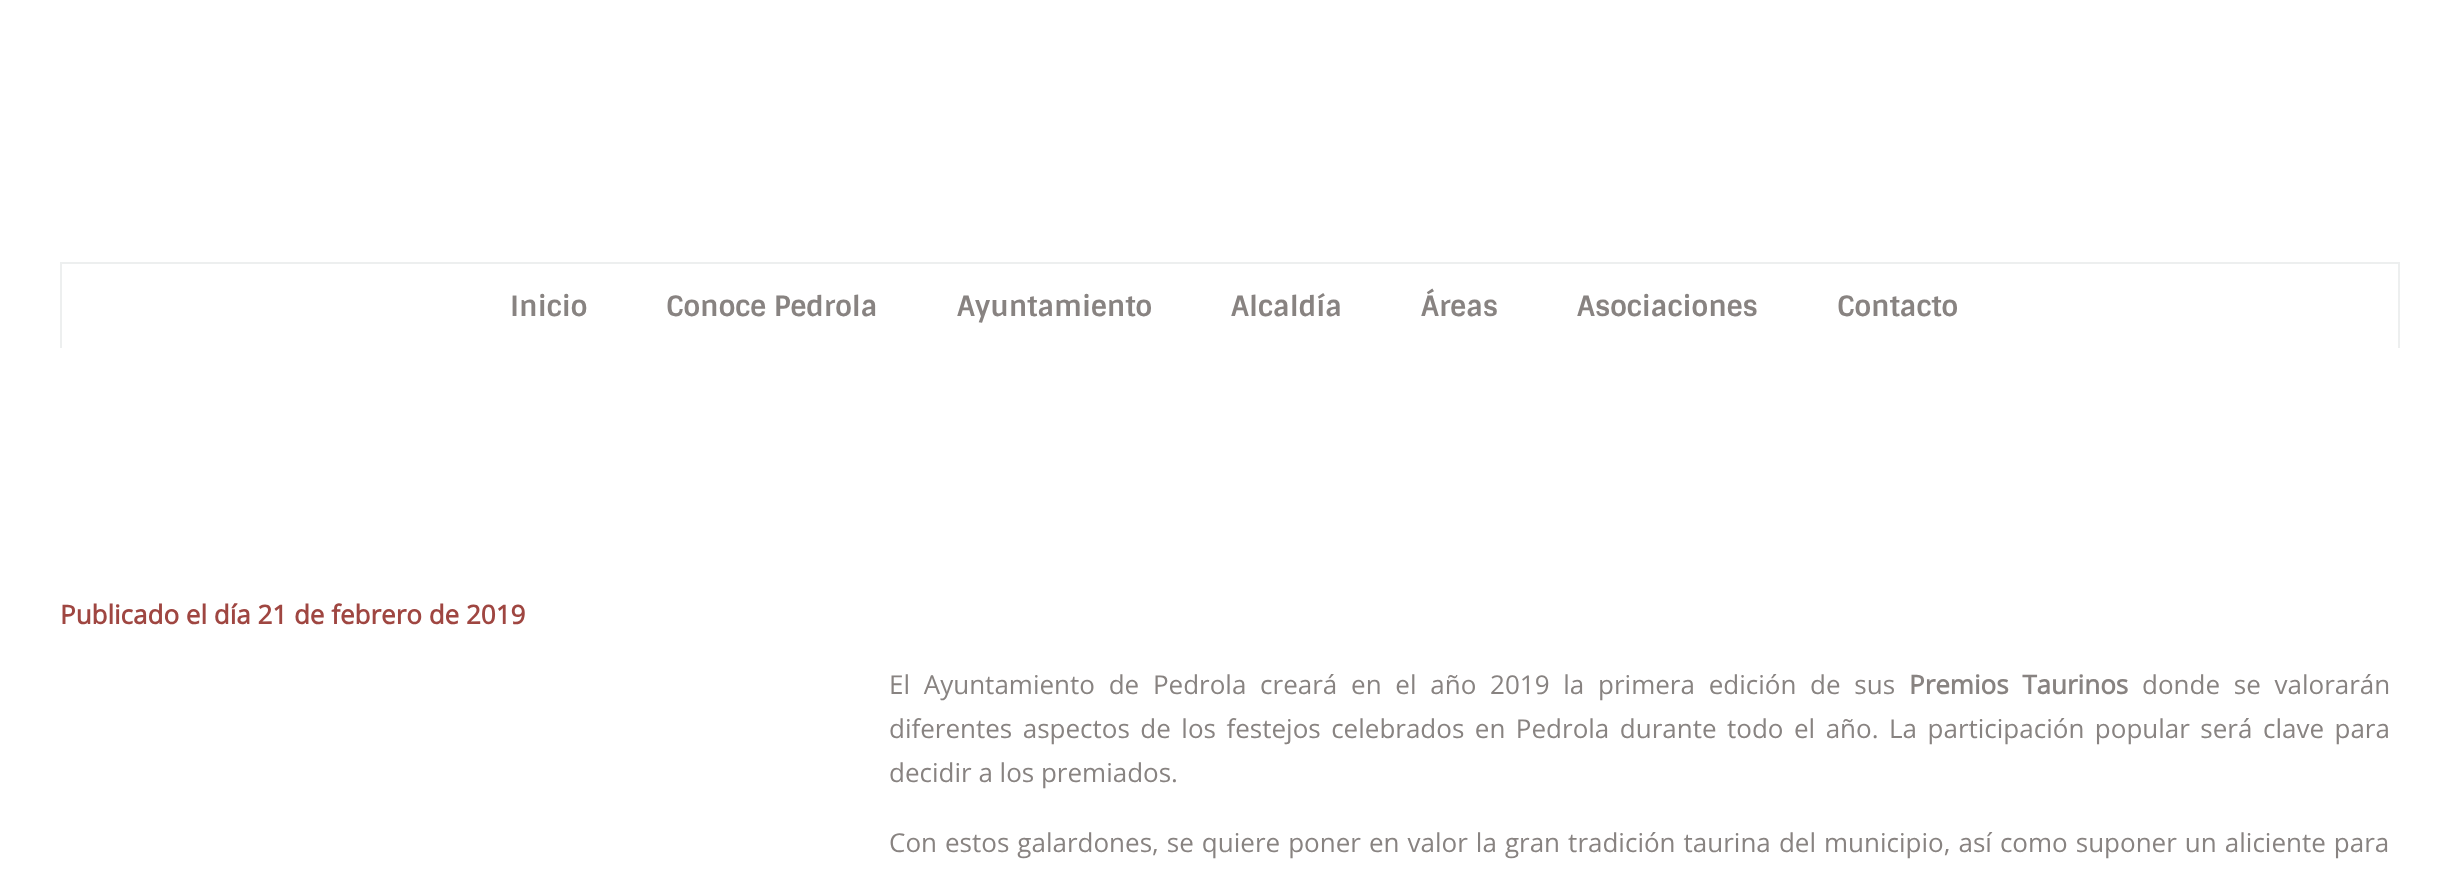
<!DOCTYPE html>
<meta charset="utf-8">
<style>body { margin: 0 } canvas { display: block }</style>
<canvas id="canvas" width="2449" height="879"></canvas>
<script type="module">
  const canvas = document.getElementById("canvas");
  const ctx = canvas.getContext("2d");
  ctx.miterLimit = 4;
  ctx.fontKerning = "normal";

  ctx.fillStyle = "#ffffff";
  ctx.fillRect(0, 0, 2449, 879);
  ctx.fillStyle = "#edefef";
  ctx.fillRect(60, 262, 2340, 2);
  ctx.fillRect(2398, 262, 2, 86);
  ctx.fillRect(60, 262, 2, 86);
  ctx.font = "bold 28px Sintony";
  ctx.fillStyle = "#888381";
  ctx.fillText("Inicio", 510, 316);
  ctx.fillText("Conoce Pedrola", 666, 316);
  ctx.fillText("Ayuntamiento", 957, 316);
  ctx.fillText("Alcaldía", 1231, 316);
  ctx.fillText("Áreas", 1421, 316);
  ctx.fillText("Asociaciones", 1577, 316);
  ctx.fillText("Contacto", 1837, 316);
  ctx.font = "bold 26px Open Sans";
  ctx.fillStyle = "#9f4641";
  ctx.fillText("Publicado el día 21 de febrero de 2019", 60, 624);
  ctx.wordSpacing = "7px";
  ctx.font = "26px Open Sans";
  ctx.fillStyle = "#888381";
  ctx.fillText("El Ayuntamiento de Pedrola creará en el año 2019 la primera edición de sus", 889, 694);
  ctx.font = "bold 26px Open Sans";
  ctx.fillText("Premios Taurinos", 1909, 694);
  ctx.font = "26px Open Sans";
  ctx.fillText("donde se valorarán", 2142, 694);
  ctx.wordSpacing = "3.75px";
  ctx.fillText("diferentes aspectos de los festejos celebrados en Pedrola durante todo el año. La participación popular será clave para", 889, 738);
  ctx.wordSpacing = "0px";
  ctx.fillText("decidir a los premiados.", 889, 782);
  ctx.wordSpacing = "1.3px";
  ctx.fillText("Con estos galardones, se quiere poner en valor la gran tradición taurina del municipio, así como suponer un aliciente para", 889, 852);
</script>
